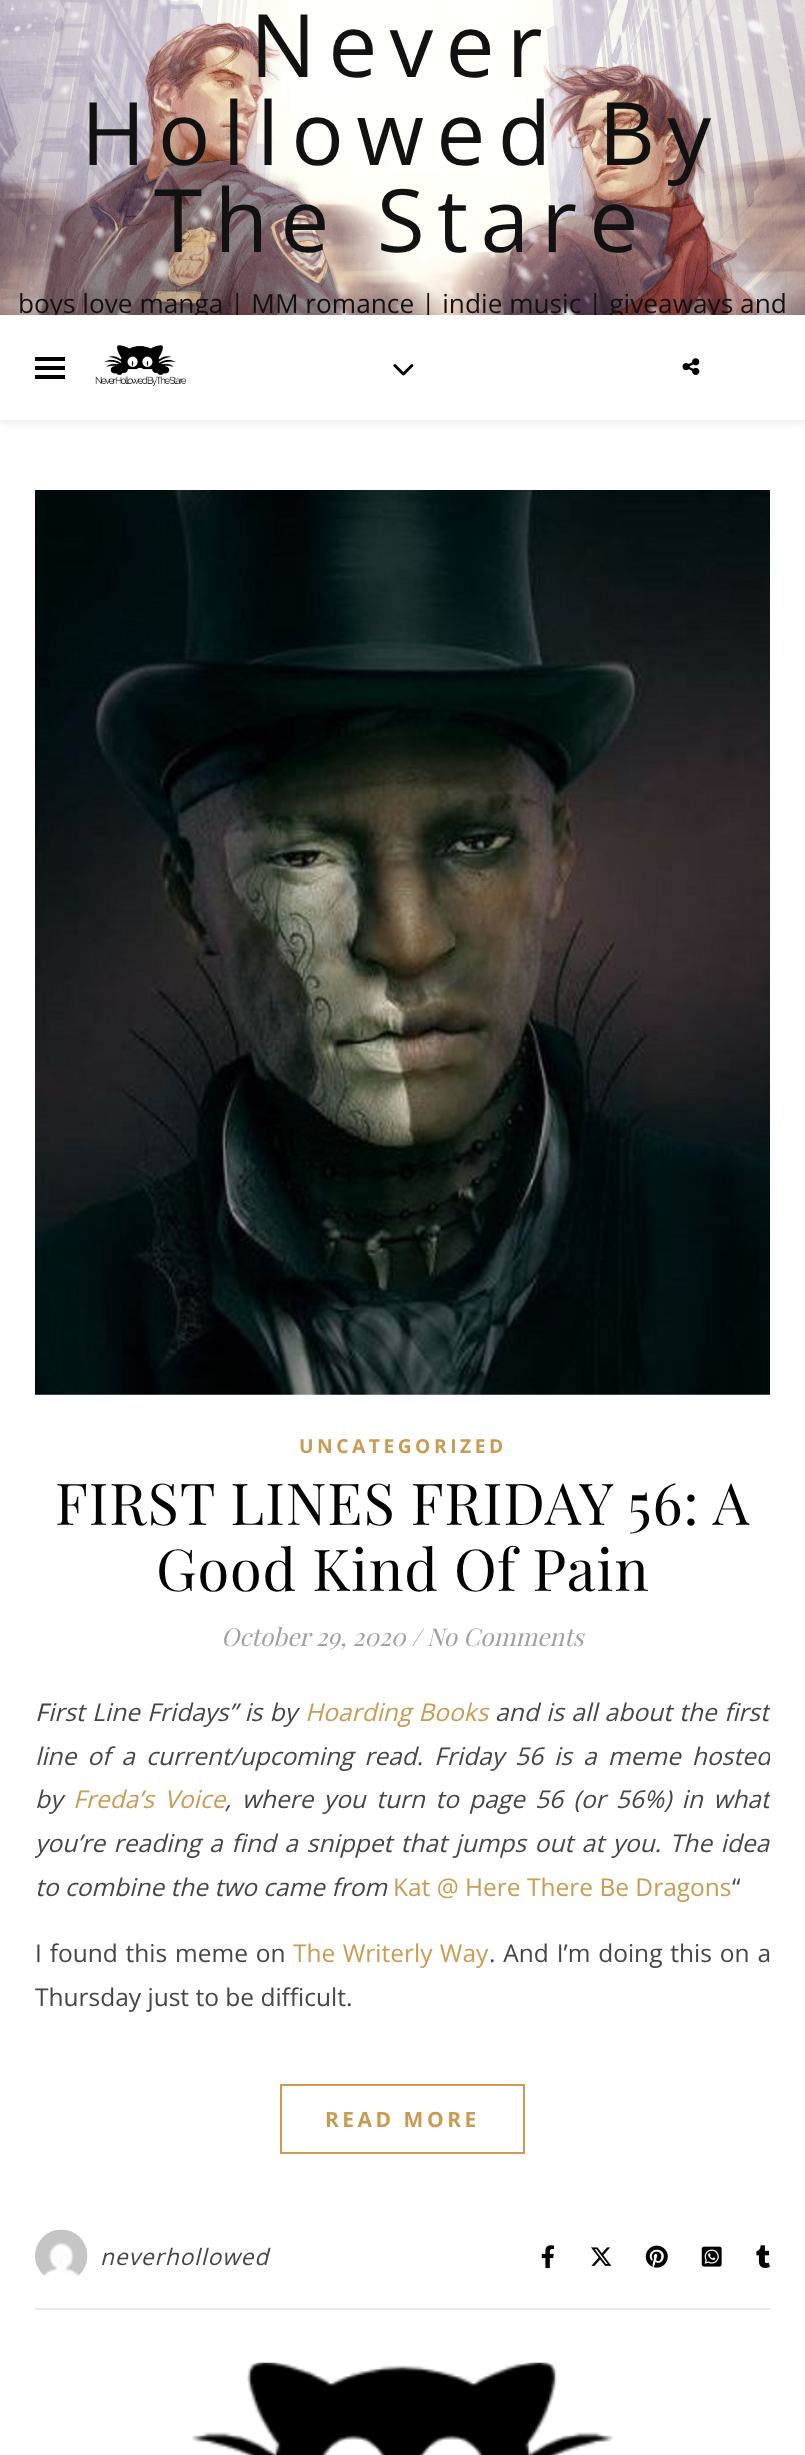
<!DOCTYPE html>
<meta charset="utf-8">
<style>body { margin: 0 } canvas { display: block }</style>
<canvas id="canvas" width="805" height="2455"></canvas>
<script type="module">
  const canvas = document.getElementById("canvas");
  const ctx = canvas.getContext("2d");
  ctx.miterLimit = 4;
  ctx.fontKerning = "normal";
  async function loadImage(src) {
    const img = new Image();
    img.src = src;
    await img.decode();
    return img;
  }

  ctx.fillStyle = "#ffffff";
  ctx.fillRect(0, 0, 805, 2455);
  ctx.drawImage(await loadImage("img1.png"), 0, 0, 805, 315);
  ctx.letterSpacing = "12.25px";
  ctx.font = "87.5px Open Sans";
  ctx.fillStyle = "#111111";
  ctx.fillText("Never", 250, 77);
  ctx.fillText("Hollowed By", 81, 165);
  ctx.fillText("The Stare", 154, 252);
  ctx.save();
  ctx.beginPath();
  ctx.rect(0, 0, 805, 315);
  ctx.clip();
  ctx.letterSpacing = "0px";
  ctx.font = "26.25px Open Sans";
  ctx.fillText("boys love manga | MM romance | indie music | giveaways and", 18, 313);
  ctx.restore();
  ctx.save();
  ctx.beginPath();
  ctx.moveTo(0, 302);
  ctx.lineTo(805, 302);
  ctx.lineTo(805, 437);
  ctx.lineTo(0, 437);
  ctx.closePath();
  ctx.moveTo(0, 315);
  ctx.lineTo(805, 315);
  ctx.lineTo(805, 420);
  ctx.lineTo(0, 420);
  ctx.closePath();
  ctx.clip("evenodd");
  ctx.fillStyle = "rgba(0, 0, 0, 0.1)";
  ctx.filter = "blur(4.5px)";
  ctx.beginPath();
  ctx.rect(0, 317, 805, 105);
  ctx.fill();
  ctx.filter = "none";
  ctx.restore();
  ctx.fillStyle = "#000000";
  ctx.fillRect(35, 357, 30, 4);
  ctx.fillRect(35, 366, 30, 4);
  ctx.fillRect(35, 375, 30, 4);
  ctx.drawImage(await loadImage("img2.png"), 95, 345, 92, 42);
  ctx.drawImage(await loadImage("img3.png"), 393, 364, 21, 12);
  ctx.drawImage(await loadImage("img4.png"), 682, 358, 18, 17);
  ctx.drawImage(await loadImage("img5.png"), 35, 490, 735, 905);
  ctx.letterSpacing = "3.5px";
  ctx.font = "bold 19.25px Open Sans";
  ctx.fillStyle = "#ca9b52";
  ctx.fillText("UNCATEGORIZED", 299, 1453);
  ctx.letterSpacing = "0.9px";
  ctx.font = "57.75px Playfair Display";
  ctx.fillStyle = "#030303";
  ctx.fillText("FIRST LINES FRIDAY 56: A", 55, 1525);
  ctx.fillText("Good Kind Of Pain", 156, 1591);
  ctx.letterSpacing = "0px";
  ctx.font = "italic 24.5px Playfair Display";
  ctx.fillStyle = "#a1a1a1";
  ctx.fillText("October 29, 2020 / No Comments", 221, 1646);
  ctx.font = "italic 24.5px Noto Sans";
  ctx.fillStyle = "#464646";
  ctx.fillText("F", 35, 1721);
  ctx.wordSpacing = "1px";
  ctx.font = "italic 24.5px Open Sans";
  ctx.fillText("irst Line Fridays” is by", 48, 1721);
  ctx.fillStyle = "#ca9b52";
  ctx.fillText("Hoarding Books", 305, 1721);
  ctx.save();
  ctx.beginPath();
  ctx.rect(35, 1689, 735, 352);
  ctx.clip();
  ctx.fillStyle = "#464646";
  ctx.fillText("and is all about the first", 495, 1721);
  ctx.wordSpacing = "4.75px";
  ctx.fillText("line of a current/upcoming read. Friday 56 is a meme hosted", 35, 1765);
  ctx.restore();
  ctx.wordSpacing = "0px";
  ctx.fillStyle = "#464646";
  ctx.fillText("by", 35, 1808);
  ctx.wordSpacing = "4px";
  ctx.fillStyle = "#ca9b52";
  ctx.fillText("Freda’s Voice", 73, 1808);
  ctx.save();
  ctx.beginPath();
  ctx.rect(35, 1689, 735, 352);
  ctx.clip();
  ctx.fillStyle = "#464646";
  ctx.fillText(", where you turn to page 56 (or 56%) in what", 225, 1808);
  ctx.wordSpacing = "2.25px";
  ctx.fillText("you’re reading a find a snippet that jumps out at you. The idea", 35, 1852);
  ctx.restore();
  ctx.wordSpacing = "0px";
  ctx.fillStyle = "#464646";
  ctx.fillText("to combine the two came from", 35, 1896);
  ctx.font = "24.5px Open Sans";
  ctx.fillStyle = "#ca9b52";
  ctx.fillText("Kat @ Here There Be Dragons", 393, 1896);
  ctx.fillStyle = "#464646";
  ctx.fillText("“", 732, 1896);
  ctx.wordSpacing = "1.5px";
  ctx.fillText("I found this meme on", 35, 1962);
  ctx.wordSpacing = "1px";
  ctx.fillStyle = "#ca9b52";
  ctx.fillText("The Writerly Way", 293, 1962);
  ctx.wordSpacing = "1.5px";
  ctx.fillStyle = "#464646";
  ctx.fillText(". And I’m doing this on a", 489, 1962);
  ctx.wordSpacing = "0px";
  ctx.fillText("Thursday just to be difficult.", 35, 2006);
  ctx.strokeStyle = "#ca9b52";
  ctx.lineWidth = 2;
  ctx.strokeRect(281, 2085, 243, 68);
  ctx.letterSpacing = "3.5px";
  ctx.font = "bold 21px Open Sans";
  ctx.fillStyle = "#ca9b52";
  ctx.fillText("READ MORE", 325, 2127);
  ctx.fillStyle = "#e8e8e8";
  ctx.fillRect(35, 2308, 735, 2);
  ctx.drawImage(await loadImage("img6.png"), 35, 2229, 53, 48);
  ctx.letterSpacing = "0.9px";
  ctx.font = "italic 22.75px Open Sans";
  ctx.fillStyle = "#464646";
  ctx.fillText("neverhollowed", 100, 2265);
  ctx.drawImage(await loadImage("img7.png"), 541, 2245, 13, 23);
  ctx.drawImage(await loadImage("img8.png"), 591, 2247, 21, 19);
  ctx.drawImage(await loadImage("img9.png"), 645, 2245, 23, 23);
  ctx.drawImage(await loadImage("img10.png"), 701, 2246, 21, 21);
  ctx.drawImage(await loadImage("img11.png"), 756, 2245, 14, 23);
  ctx.drawImage(await loadImage("img12.png"), 192, 2362, 421, 93);
</script>
